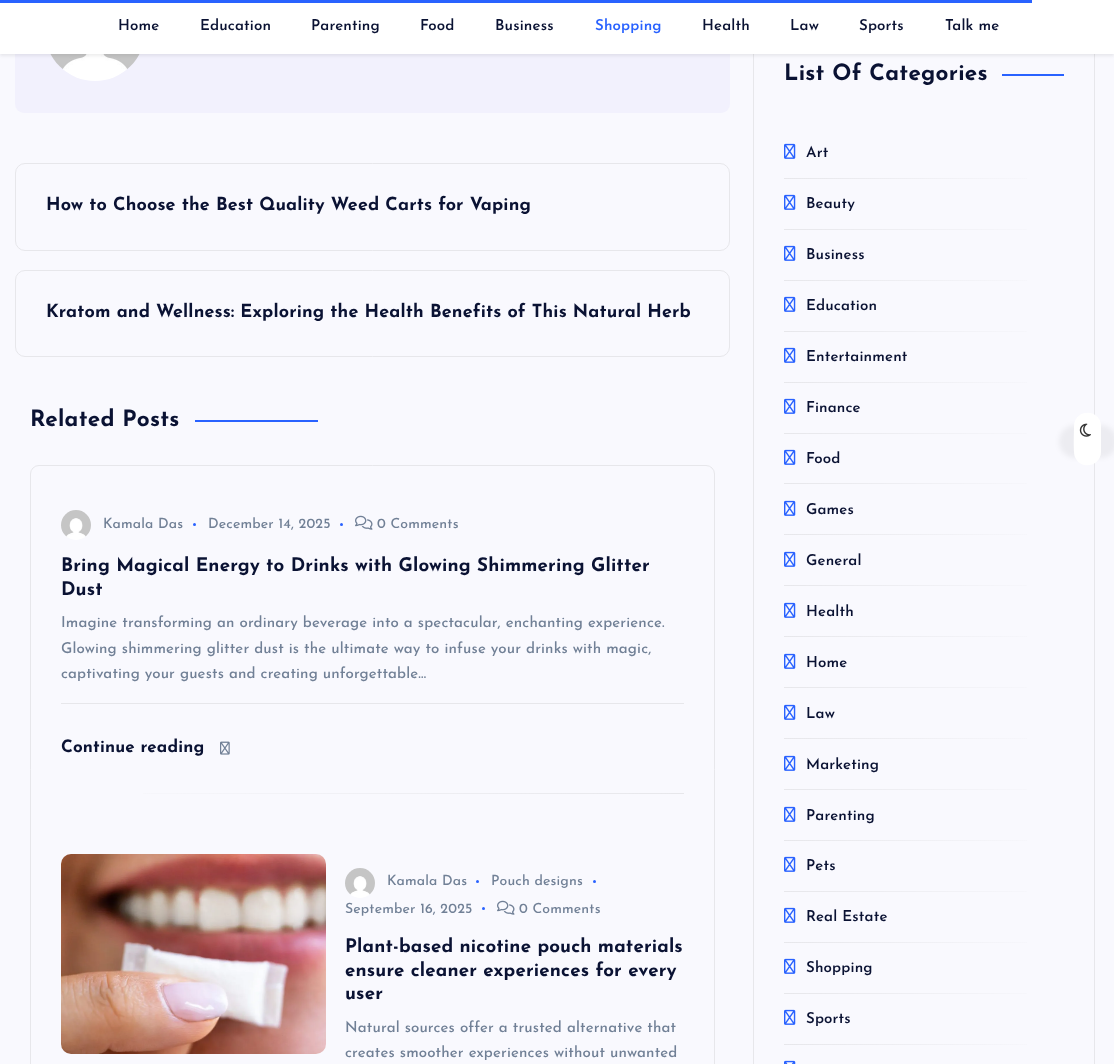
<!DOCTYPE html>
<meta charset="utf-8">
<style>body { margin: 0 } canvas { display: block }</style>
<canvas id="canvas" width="1114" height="1064"></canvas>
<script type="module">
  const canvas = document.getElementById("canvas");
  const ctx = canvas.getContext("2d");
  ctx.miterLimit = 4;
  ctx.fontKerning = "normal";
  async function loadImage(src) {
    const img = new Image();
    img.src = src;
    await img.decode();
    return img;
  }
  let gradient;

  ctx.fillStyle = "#f9f9fe";
  ctx.fillRect(0, 0, 1114, 1064);
  ctx.fillStyle = "#f2f1fd";
  ctx.beginPath();
  ctx.roundRect(15, -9, 715, 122, 9);
  ctx.fill();
  ctx.drawImage(await loadImage("img1.png"), 50, 54, 90, 27);
  ctx.strokeStyle = "#e7e7eb";
  ctx.strokeRect(753.5, 25.5, 341, 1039);
  ctx.fillStyle = "rgba(0, 0, 0, 0.07)";
  ctx.filter = "blur(1.5px)";
  ctx.beginPath();
  ctx.rect(0, 2, 1114, 54);
  ctx.fill();
  ctx.filter = "none";
  ctx.fillStyle = "#ffffff";
  ctx.fillRect(0, 0, 1114, 54);
  ctx.fillStyle = "#2962ff";
  ctx.fillRect(0, 0, 1032, 3);
  ctx.letterSpacing = "0.15px";
  ctx.font = "600 15px Josefin Sans";
  ctx.fillStyle = "#0a1233";
  ctx.fillText("Home", 118, 30);
  ctx.fillText("Education", 200, 30);
  ctx.fillText("Parenting", 311, 30);
  ctx.fillText("Food", 420, 30);
  ctx.fillText("Business", 495, 30);
  ctx.fillStyle = "#2962ff";
  ctx.fillText("Shopping", 595, 30);
  ctx.fillStyle = "#0a1233";
  ctx.fillText("Health", 702, 30);
  ctx.fillText("Law", 790, 30);
  ctx.fillText("Sports", 859, 30);
  ctx.fillText("Talk me", 945, 30);
  ctx.beginPath();
  ctx.roundRect(15.5, 163.5, 714, 87, 9.5);
  ctx.stroke();
  ctx.font = "bold 18px Josefin Sans";
  ctx.fillText("How to Choose the Best Quality Weed Carts for Vaping", 46, 210);
  ctx.beginPath();
  ctx.roundRect(15.5, 270.5, 714, 86, 9.5);
  ctx.stroke();
  ctx.fillText("Kratom and Wellness: Exploring the Health Benefits of This Natural Herb", 46, 317);
  ctx.letterSpacing = "0.25px";
  ctx.font = "bold 22.5px Josefin Sans";
  ctx.fillText("Related Posts", 30, 426);
  ctx.fillStyle = "#2962ff";
  ctx.fillRect(195, 420, 123, 2);
  ctx.beginPath();
  ctx.roundRect(30.5, 465.5, 684, 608, 8.5);
  ctx.stroke();
  ctx.drawImage(await loadImage("img2.png"), 61, 510, 30, 30);
  ctx.letterSpacing = "0.15px";
  ctx.font = "500 14px Josefin Sans";
  ctx.fillStyle = "#718096";
  ctx.fillText("Kamala Das", 103, 528);
  ctx.fillStyle = "#2962ff";
  ctx.beginPath();
  ctx.arc(194.5, 524.5, 1.5, 0, Math.PI * 2);
  ctx.fill();
  ctx.fillStyle = "#718096";
  ctx.fillText("December 14, 2025", 208, 528);
  ctx.fillStyle = "#2962ff";
  ctx.beginPath();
  ctx.arc(341.5, 524.5, 1.5, 0, Math.PI * 2);
  ctx.fill();
  ctx.drawImage(await loadImage("img3.png"), 355, 515, 18, 15);
  ctx.fillStyle = "#718096";
  ctx.fillText("0 Comments", 377, 528);
  ctx.font = "bold 18.75px Josefin Sans";
  ctx.fillStyle = "#0a1233";
  ctx.fillText("Bring Magical Energy to Drinks with Glowing Shimmering Glitter", 61, 571);
  ctx.fillText("Dust", 61, 595);
  ctx.font = "500 15px Josefin Sans";
  ctx.fillStyle = "#718096";
  ctx.fillText("Imagine transforming an ordinary beverage into a spectacular, enchanting experience.", 61, 627);
  ctx.fillText("Glowing shimmering glitter dust is the ultimate way to infuse your drinks with magic,", 61, 653);
  ctx.fillText("captivating your guests and creating unforgettable…", 61, 678);
  ctx.fillStyle = "#e7e7eb";
  ctx.fillRect(61, 703, 623, 1);
  ctx.font = "bold 17px Josefin Sans";
  ctx.fillStyle = "#0a1233";
  ctx.fillText("Continue reading", 61, 752);
  ctx.drawImage(await loadImage("img4.png"), 220, 741, 10, 14);
  gradient = ctx.createLinearGradient(684, 794, 61, 794);
  gradient.addColorStop(0, "#e7e7eb");
  gradient.addColorStop(1, "#f9f9fe");
  ctx.fillStyle = gradient;
  ctx.fillRect(143, 793, 541, 1);
  ctx.drawImage(await loadImage("img5.png"), 61, 854, 265, 200);
  ctx.drawImage(await loadImage("img6.png"), 345, 868, 30, 30);
  ctx.font = "500 14px Josefin Sans";
  ctx.fillStyle = "#718096";
  ctx.fillText("Kamala Das", 387, 885);
  ctx.fillStyle = "#2962ff";
  ctx.beginPath();
  ctx.arc(477.5, 881.5, 1.5, 0, Math.PI * 2);
  ctx.fill();
  ctx.fillStyle = "#718096";
  ctx.fillText("Pouch designs", 491, 885);
  ctx.fillStyle = "#2962ff";
  ctx.beginPath();
  ctx.arc(594.5, 881.5, 1.5, 0, Math.PI * 2);
  ctx.fill();
  ctx.fillStyle = "#718096";
  ctx.fillText("September 16, 2025", 345, 913);
  ctx.fillStyle = "#2962ff";
  ctx.beginPath();
  ctx.arc(483.5, 908.5, 1.5, 0, Math.PI * 2);
  ctx.fill();
  ctx.drawImage(await loadImage("img3.png"), 497, 900, 18, 15);
  ctx.fillStyle = "#718096";
  ctx.fillText("0 Comments", 519, 913);
  ctx.font = "bold 18.75px Josefin Sans";
  ctx.fillStyle = "#0a1233";
  ctx.fillText("Plant-based nicotine pouch materials", 345, 952);
  ctx.fillText("ensure cleaner experiences for every", 345, 976);
  ctx.fillText("user", 345, 999);
  ctx.font = "500 15px Josefin Sans";
  ctx.fillStyle = "#718096";
  ctx.fillText("Natural sources offer a trusted alternative that", 345, 1032);
  ctx.fillText("creates smoother experiences without unwanted", 345, 1057);
  ctx.letterSpacing = "0.25px";
  ctx.font = "bold 22.5px Josefin Sans";
  ctx.fillStyle = "#0a1233";
  ctx.fillText("List Of Categories", 784, 80);
  ctx.fillStyle = "#2962ff";
  ctx.fillRect(1002, 74, 62, 2);
  ctx.drawImage(await loadImage("img7.png"), 784, 143, 12, 16);
  ctx.letterSpacing = "0.15px";
  ctx.font = "600 15px Josefin Sans";
  ctx.fillStyle = "#0a1233";
  ctx.fillText("Art", 806, 157);
  gradient = ctx.createLinearGradient(784, 179, 1064, 179);
  gradient.addColorStop(0, "#e7e7eb");
  gradient.addColorStop(1, "#f9f9fe");
  ctx.fillStyle = gradient;
  ctx.fillRect(784, 178, 243, 1);
  ctx.drawImage(await loadImage("img7.png"), 784, 194, 12, 16);
  ctx.fillStyle = "#0a1233";
  ctx.fillText("Beauty", 806, 208);
  gradient = ctx.createLinearGradient(784, 230, 1064, 230);
  gradient.addColorStop(0, "#e7e7eb");
  gradient.addColorStop(1, "#f9f9fe");
  ctx.fillStyle = gradient;
  ctx.fillRect(784, 229, 243, 1);
  ctx.drawImage(await loadImage("img7.png"), 784, 245, 12, 16);
  ctx.fillStyle = "#0a1233";
  ctx.fillText("Business", 806, 259);
  gradient = ctx.createLinearGradient(784, 281, 1064, 281);
  gradient.addColorStop(0, "#e7e7eb");
  gradient.addColorStop(1, "#f9f9fe");
  ctx.fillStyle = gradient;
  ctx.fillRect(784, 280, 243, 1);
  ctx.drawImage(await loadImage("img7.png"), 784, 296, 12, 16);
  ctx.fillStyle = "#0a1233";
  ctx.fillText("Education", 806, 310);
  gradient = ctx.createLinearGradient(784, 332, 1064, 332);
  gradient.addColorStop(0, "#e7e7eb");
  gradient.addColorStop(1, "#f9f9fe");
  ctx.fillStyle = gradient;
  ctx.fillRect(784, 331, 243, 1);
  ctx.drawImage(await loadImage("img7.png"), 784, 347, 12, 16);
  ctx.fillStyle = "#0a1233";
  ctx.fillText("Entertainment", 806, 361);
  gradient = ctx.createLinearGradient(784, 383, 1064, 383);
  gradient.addColorStop(0, "#e7e7eb");
  gradient.addColorStop(1, "#f9f9fe");
  ctx.fillStyle = gradient;
  ctx.fillRect(784, 382, 243, 1);
  ctx.drawImage(await loadImage("img7.png"), 784, 398, 12, 16);
  ctx.fillStyle = "#0a1233";
  ctx.fillText("Finance", 806, 412);
  gradient = ctx.createLinearGradient(784, 434, 1064, 434);
  gradient.addColorStop(0, "#e7e7eb");
  gradient.addColorStop(1, "#f9f9fe");
  ctx.fillStyle = gradient;
  ctx.fillRect(784, 433, 243, 1);
  ctx.drawImage(await loadImage("img7.png"), 784, 449, 12, 16);
  ctx.fillStyle = "#0a1233";
  ctx.fillText("Food", 806, 463);
  gradient = ctx.createLinearGradient(784, 484, 1064, 484);
  gradient.addColorStop(0, "#e7e7eb");
  gradient.addColorStop(1, "#f9f9fe");
  ctx.fillStyle = gradient;
  ctx.fillRect(784, 483, 243, 1);
  ctx.drawImage(await loadImage("img7.png"), 784, 500, 12, 16);
  ctx.fillStyle = "#0a1233";
  ctx.fillText("Games", 806, 514);
  gradient = ctx.createLinearGradient(784, 535, 1064, 535);
  gradient.addColorStop(0, "#e7e7eb");
  gradient.addColorStop(1, "#f9f9fe");
  ctx.fillStyle = gradient;
  ctx.fillRect(784, 534, 243, 1);
  ctx.drawImage(await loadImage("img7.png"), 784, 551, 12, 16);
  ctx.fillStyle = "#0a1233";
  ctx.fillText("General", 806, 565);
  gradient = ctx.createLinearGradient(784, 586, 1064, 586);
  gradient.addColorStop(0, "#e7e7eb");
  gradient.addColorStop(1, "#f9f9fe");
  ctx.fillStyle = gradient;
  ctx.fillRect(784, 585, 243, 1);
  ctx.drawImage(await loadImage("img7.png"), 784, 602, 12, 16);
  ctx.fillStyle = "#0a1233";
  ctx.fillText("Health", 806, 616);
  gradient = ctx.createLinearGradient(784, 637, 1064, 637);
  gradient.addColorStop(0, "#e7e7eb");
  gradient.addColorStop(1, "#f9f9fe");
  ctx.fillStyle = gradient;
  ctx.fillRect(784, 636, 243, 1);
  ctx.drawImage(await loadImage("img7.png"), 784, 653, 12, 16);
  ctx.fillStyle = "#0a1233";
  ctx.fillText("Home", 806, 667);
  gradient = ctx.createLinearGradient(784, 688, 1064, 688);
  gradient.addColorStop(0, "#e7e7eb");
  gradient.addColorStop(1, "#f9f9fe");
  ctx.fillStyle = gradient;
  ctx.fillRect(784, 687, 243, 1);
  ctx.drawImage(await loadImage("img7.png"), 784, 704, 12, 16);
  ctx.fillStyle = "#0a1233";
  ctx.fillText("Law", 806, 718);
  gradient = ctx.createLinearGradient(784, 739, 1064, 739);
  gradient.addColorStop(0, "#e7e7eb");
  gradient.addColorStop(1, "#f9f9fe");
  ctx.fillStyle = gradient;
  ctx.fillRect(784, 738, 243, 1);
  ctx.drawImage(await loadImage("img7.png"), 784, 755, 12, 16);
  ctx.fillStyle = "#0a1233";
  ctx.fillText("Marketing", 806, 769);
  gradient = ctx.createLinearGradient(784, 790, 1064, 790);
  gradient.addColorStop(0, "#e7e7eb");
  gradient.addColorStop(1, "#f9f9fe");
  ctx.fillStyle = gradient;
  ctx.fillRect(784, 789, 243, 1);
  ctx.drawImage(await loadImage("img7.png"), 784, 806, 12, 16);
  ctx.fillStyle = "#0a1233";
  ctx.fillText("Parenting", 806, 820);
  gradient = ctx.createLinearGradient(784, 841, 1064, 841);
  gradient.addColorStop(0, "#e7e7eb");
  gradient.addColorStop(1, "#f9f9fe");
  ctx.fillStyle = gradient;
  ctx.fillRect(784, 840, 243, 1);
  ctx.drawImage(await loadImage("img7.png"), 784, 856, 12, 16);
  ctx.fillStyle = "#0a1233";
  ctx.fillText("Pets", 806, 870);
  gradient = ctx.createLinearGradient(784, 892, 1064, 892);
  gradient.addColorStop(0, "#e7e7eb");
  gradient.addColorStop(1, "#f9f9fe");
  ctx.fillStyle = gradient;
  ctx.fillRect(784, 891, 243, 1);
  ctx.drawImage(await loadImage("img7.png"), 784, 907, 12, 16);
  ctx.fillStyle = "#0a1233";
  ctx.fillText("Real Estate", 806, 921);
  gradient = ctx.createLinearGradient(784, 943, 1064, 943);
  gradient.addColorStop(0, "#e7e7eb");
  gradient.addColorStop(1, "#f9f9fe");
  ctx.fillStyle = gradient;
  ctx.fillRect(784, 942, 243, 1);
  ctx.drawImage(await loadImage("img7.png"), 784, 958, 12, 16);
  ctx.fillStyle = "#0a1233";
  ctx.fillText("Shopping", 806, 972);
  gradient = ctx.createLinearGradient(784, 994, 1064, 994);
  gradient.addColorStop(0, "#e7e7eb");
  gradient.addColorStop(1, "#f9f9fe");
  ctx.fillStyle = gradient;
  ctx.fillRect(784, 993, 243, 1);
  ctx.drawImage(await loadImage("img7.png"), 784, 1009, 12, 16);
  ctx.fillStyle = "#0a1233";
  ctx.fillText("Sports", 806, 1023);
  gradient = ctx.createLinearGradient(784, 1045, 1064, 1045);
  gradient.addColorStop(0, "#e7e7eb");
  gradient.addColorStop(1, "#f9f9fe");
  ctx.fillStyle = gradient;
  ctx.fillRect(784, 1044, 243, 1);
  ctx.drawImage(await loadImage("img8.png"), 784, 1060, 12, 4);
  ctx.fillStyle = "rgba(0, 0, 0, 0.05)";
  ctx.filter = "blur(2.5px)";
  ctx.beginPath();
  ctx.roundRect(1059, 425, 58, 33, 16.5);
  ctx.fill();
  ctx.filter = "none";
  ctx.fillStyle = "#ffffff";
  ctx.beginPath();
  ctx.moveTo(1101, 426);
  ctx.lineTo(1101, 452);
  ctx.bezierCurveTo(1101, 466, 1081, 471, 1075, 457);
  ctx.bezierCurveTo(1073, 452, 1074, 433, 1074, 426);
  ctx.bezierCurveTo(1075, 408, 1101, 409, 1101, 426);
  ctx.closePath();
  ctx.fill();
  ctx.drawImage(await loadImage("img9.png"), 1079, 423, 12, 14);
</script>
